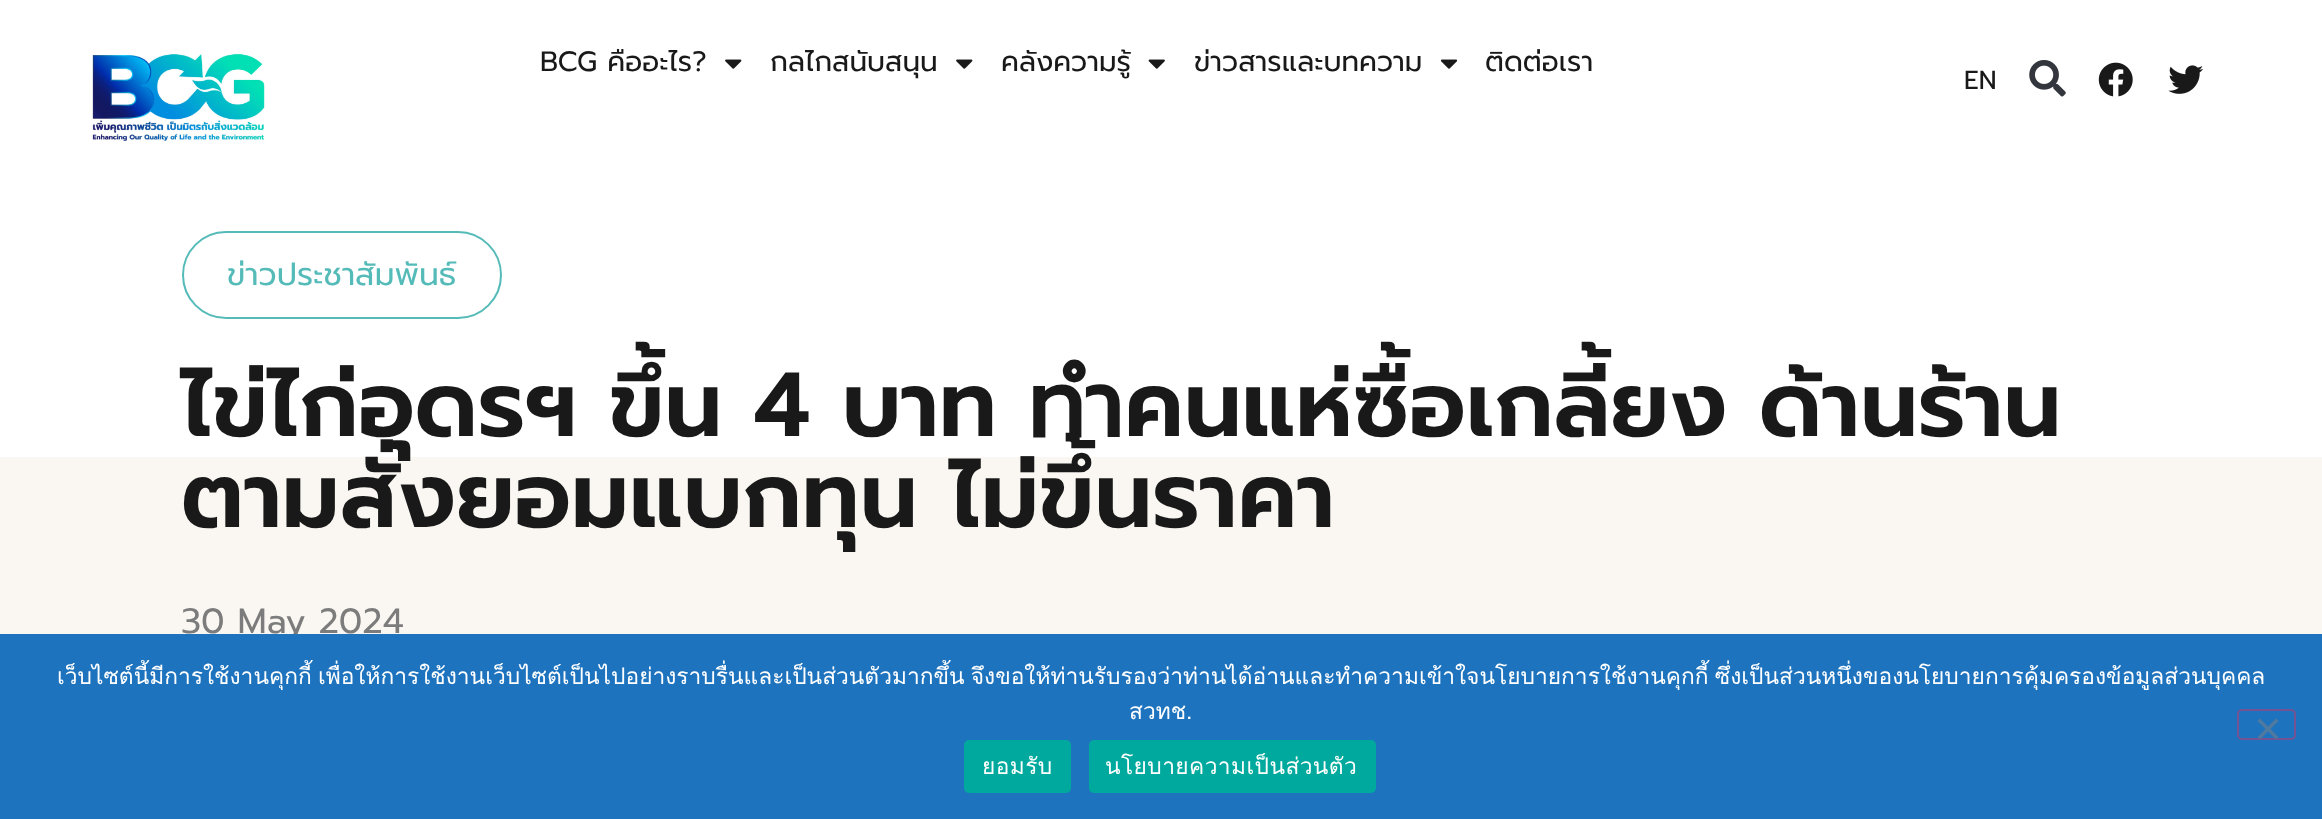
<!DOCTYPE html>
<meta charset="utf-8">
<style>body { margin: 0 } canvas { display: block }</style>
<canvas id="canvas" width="2322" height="819"></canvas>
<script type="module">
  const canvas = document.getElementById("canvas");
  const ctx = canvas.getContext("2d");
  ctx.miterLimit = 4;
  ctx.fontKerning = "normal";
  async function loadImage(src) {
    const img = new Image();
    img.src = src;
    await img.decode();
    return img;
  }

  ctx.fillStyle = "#ffffff";
  ctx.fillRect(0, 0, 2322, 819);
  ctx.drawImage(await loadImage("img1.png"), 91, 53, 174, 88);
  ctx.font = "28px Prompt";
  ctx.fillStyle = "#191919";
  ctx.fillText("BCG คืออะไร?", 540, 71);
  ctx.drawImage(await loadImage("img2.png"), 725, 59, 17, 10);
  ctx.fillText("กลไกสนับสนุน", 770, 71);
  ctx.drawImage(await loadImage("img2.png"), 956, 59, 17, 10);
  ctx.fillText("คลังความรู้", 1001, 71);
  ctx.drawImage(await loadImage("img3.png"), 1148, 59, 17, 10);
  ctx.fillText("ข่าวสารและบทความ", 1194, 71);
  ctx.drawImage(await loadImage("img4.png"), 1440, 59, 18, 10);
  ctx.fillText("ติดต่อเรา", 1485, 71);
  ctx.font = "26px Prompt";
  ctx.fillText("EN", 1964, 89);
  ctx.drawImage(await loadImage("img5.png"), 2029, 60, 37, 37);
  ctx.drawImage(await loadImage("img6.png"), 2098, 62, 35, 35);
  ctx.drawImage(await loadImage("img7.png"), 2168, 65, 36, 29);
  ctx.fillStyle = "#faf7f2";
  ctx.fillRect(0, 457, 2322, 177);
  ctx.beginPath();
  ctx.roundRect(183, 232, 318, 86, 43);
  ctx.strokeStyle = "#55bbb9";
  ctx.lineWidth = 2;
  ctx.stroke();
  ctx.font = "31.5px Prompt";
  ctx.fillStyle = "#55bbb9";
  ctx.fillText("ข่าวประชาสัมพันธ์", 227, 285);
  ctx.font = "600 91px Prompt";
  ctx.fillStyle = "#191919";
  ctx.fillText("ไข่ไก่อุดรฯ ขึ้น 4 บาท ทำคนแห่ซื้อเกลี้ยง ด้านร้าน", 181, 436);
  ctx.fillText("ตามสั่งยอมแบกทุน ไม่ขึ้นราคา", 181, 527);
  ctx.font = "35px Prompt";
  ctx.fillStyle = "#7c7c7c";
  ctx.fillText("30 May 2024", 181, 633);
  ctx.fillStyle = "#1e73be";
  ctx.fillRect(0, 634, 2322, 185);
  ctx.wordSpacing = "-1.5px";
  ctx.font = "22.75px Loma";
  ctx.fillStyle = "#ffffff";
  ctx.fillText("เว็บไซต์นี้มีการใช้งานคุกกี้ เพื่อให้การใช้งานเว็บไซต์เป็นไปอย่างราบรื่นและเป็นส่วนตัวมากขึ้น จึงขอให้ท่านรับรองว่าท่านได้อ่านและทำความเข้าใจนโยบายการใช้งานคุกกี้ ซึ่งเป็นส่วนหนึ่งของนโยบายการคุ้มครองข้อมูลส่วนบุคคล", 57, 684);
  ctx.wordSpacing = "0px";
  ctx.fillText("สวทช.", 1129, 719);
  ctx.beginPath();
  ctx.roundRect(2238, 710, 57, 29, 4);
  ctx.strokeStyle = "#755392";
  ctx.stroke();
  ctx.fillStyle = "#4f7a9f";
  ctx.beginPath();
  ctx.moveTo(2276, 718.5);
  ctx.lineTo(2278.5, 721);
  ctx.lineTo(2260, 739.5);
  ctx.lineTo(2257.5, 737);
  ctx.closePath();
  ctx.fill();
  ctx.beginPath();
  ctx.moveTo(2257.5, 721);
  ctx.lineTo(2260, 718.5);
  ctx.lineTo(2278.5, 737);
  ctx.lineTo(2276, 739.5);
  ctx.closePath();
  ctx.fill();
  ctx.fillStyle = "#00a99d";
  ctx.beginPath();
  ctx.roundRect(964, 740, 107, 53, 5);
  ctx.fill();
  ctx.letterSpacing = "0.4px";
  ctx.fillStyle = "#ffffff";
  ctx.fillText("ยอมรับ", 982, 774);
  ctx.fillStyle = "#00a99d";
  ctx.beginPath();
  ctx.roundRect(1089, 740, 287, 53, 5);
  ctx.fill();
  ctx.fillStyle = "#ffffff";
  ctx.fillText("นโยบายความเป็นส่วนตัว", 1105, 774);
</script>
